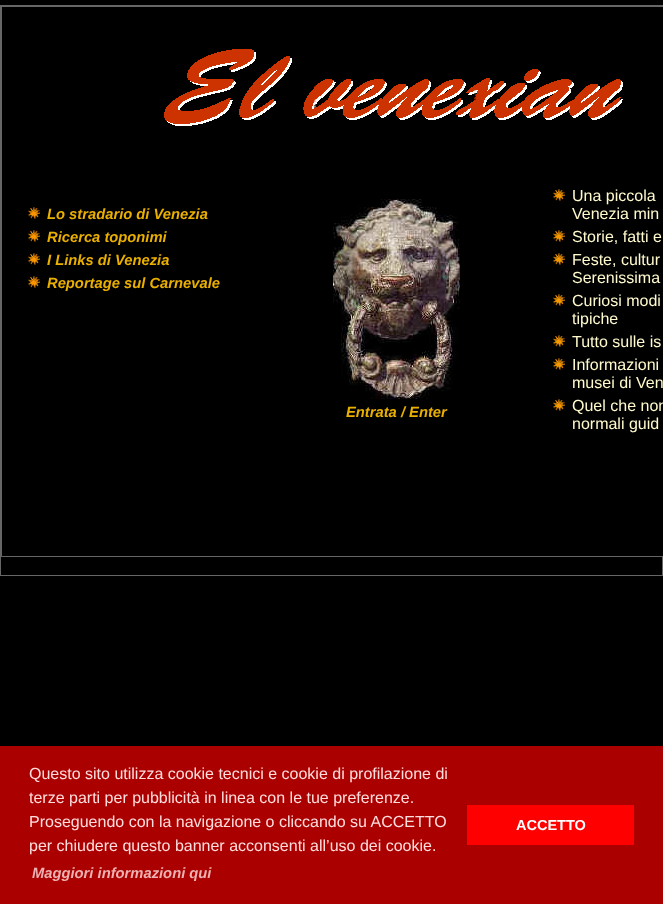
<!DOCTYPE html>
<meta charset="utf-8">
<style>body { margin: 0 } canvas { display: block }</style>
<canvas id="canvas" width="663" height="904"></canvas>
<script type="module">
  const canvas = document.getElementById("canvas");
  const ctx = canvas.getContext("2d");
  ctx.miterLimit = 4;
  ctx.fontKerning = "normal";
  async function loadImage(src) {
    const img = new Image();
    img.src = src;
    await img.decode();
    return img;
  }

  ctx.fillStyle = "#000000";
  ctx.fillRect(0, 0, 663, 904);
  ctx.strokeStyle = "#666666";
  ctx.strokeRect(0.5, 5.5, 662, 570);
  ctx.fillStyle = "#666666";
  ctx.fillRect(1, 6, 661, 551);
  ctx.fillStyle = "#000000";
  ctx.fillRect(2, 7, 661, 549);
  ctx.drawImage(await loadImage("img1.png"), 164, 49, 459, 77);
  ctx.drawImage(await loadImage("img2.png"), 28, 207, 12, 12);
  ctx.font = "italic bold 14.75px Liberation Sans";
  ctx.fillStyle = "#eab000";
  ctx.fillText("Lo stradario di Venezia", 47, 219);
  ctx.drawImage(await loadImage("img2.png"), 28, 230, 12, 12);
  ctx.fillText("Ricerca toponimi", 47, 242);
  ctx.drawImage(await loadImage("img2.png"), 28, 253, 12, 12);
  ctx.fillText("I Links di Venezia", 47, 265);
  ctx.drawImage(await loadImage("img2.png"), 28, 276, 12, 12);
  ctx.fillText("Reportage sul Carnevale", 47, 288);
  ctx.drawImage(await loadImage("img2.png"), 553, 189, 12, 12);
  ctx.font = "16px Liberation Sans";
  ctx.fillStyle = "#fffacd";
  ctx.fillText("Una piccola", 572, 201);
  ctx.fillText("Venezia min", 572, 219);
  ctx.drawImage(await loadImage("img2.png"), 553, 230, 12, 12);
  ctx.fillText("Storie, fatti e", 572, 242);
  ctx.drawImage(await loadImage("img2.png"), 553, 253, 12, 12);
  ctx.fillText("Feste, cultur", 572, 265);
  ctx.fillText("Serenissima", 572, 283);
  ctx.drawImage(await loadImage("img2.png"), 553, 294, 12, 12);
  ctx.fillText("Curiosi modi", 572, 306);
  ctx.fillText("tipiche", 572, 324);
  ctx.drawImage(await loadImage("img2.png"), 553, 335, 12, 12);
  ctx.fillText("Tutto sulle is", 572, 347);
  ctx.drawImage(await loadImage("img2.png"), 553, 358, 12, 12);
  ctx.fillText("Informazioni", 572, 370);
  ctx.fillText("musei di Ven", 572, 388);
  ctx.drawImage(await loadImage("img2.png"), 553, 399, 12, 12);
  ctx.fillText("Quel che non", 572, 411);
  ctx.fillText("normali guid", 572, 429);
  ctx.drawImage(await loadImage("img3.png"), 333, 199, 127, 200);
  ctx.font = "italic bold 14.75px Liberation Sans";
  ctx.fillStyle = "#eab000";
  ctx.fillText("Entrata / Enter", 346, 417);
  ctx.fillStyle = "#aa0000";
  ctx.fillRect(0, 746, 663, 158);
  ctx.font = "16px Liberation Sans";
  ctx.fillStyle = "#ffdddd";
  ctx.fillText("Questo sito utilizza cookie tecnici e cookie di profilazione di", 29, 779);
  ctx.fillText("terze parti per pubblicità in linea con le tue preferenze.", 29, 803);
  ctx.fillText("Proseguendo con la navigazione o cliccando su ACCETTO", 29, 827);
  ctx.fillText("per chiudere questo banner acconsenti all’uso dei cookie.", 29, 851);
  ctx.font = "italic bold 14.75px Liberation Sans";
  ctx.fillStyle = "#eeb1b1";
  ctx.fillText("Maggiori informazioni qui", 32, 878);
  ctx.fillStyle = "#ff0000";
  ctx.fillRect(467, 805, 167, 40);
  ctx.font = "bold 14.5px Liberation Sans";
  ctx.fillStyle = "#ffffff";
  ctx.fillText("ACCETTO", 516, 830);
</script>
